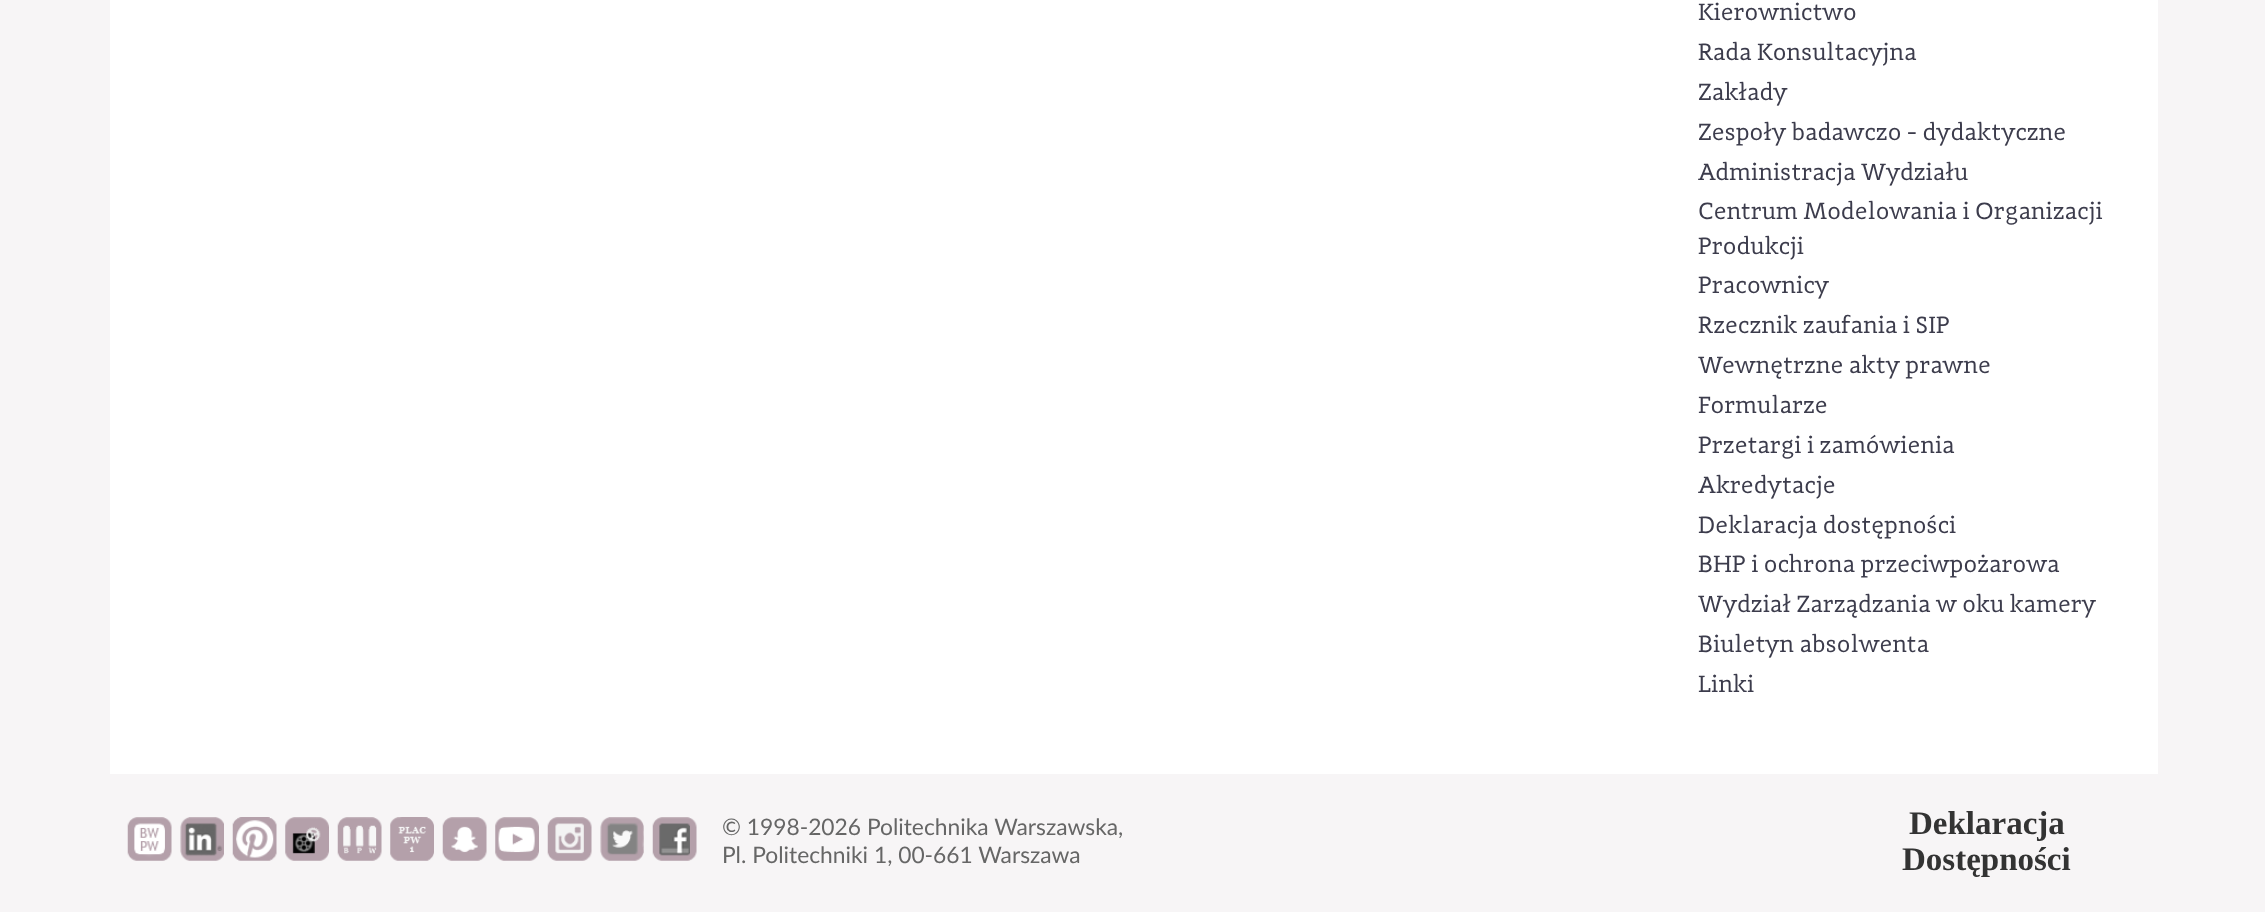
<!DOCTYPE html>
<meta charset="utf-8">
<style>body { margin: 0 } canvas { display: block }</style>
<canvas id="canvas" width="2265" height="912"></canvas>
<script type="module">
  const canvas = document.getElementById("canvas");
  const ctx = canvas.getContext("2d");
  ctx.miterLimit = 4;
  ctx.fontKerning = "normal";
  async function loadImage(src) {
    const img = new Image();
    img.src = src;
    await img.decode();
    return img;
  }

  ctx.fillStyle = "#f7f5f6";
  ctx.fillRect(0, 0, 2265, 912);
  ctx.fillStyle = "#ffffff";
  ctx.fillRect(110, 0, 2048, 774);
  ctx.font = "24.4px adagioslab";
  ctx.fillStyle = "#3c3c4c";
  ctx.fillText("Kierownictwo", 1698, 20);
  ctx.fillText("Rada Konsultacyjna", 1698, 60);
  ctx.fillText("Zakłady", 1698, 100);
  ctx.fillText("Zespoły badawczo - dydaktyczne", 1698, 140);
  ctx.fillText("Administracja Wydziału", 1698, 180);
  ctx.fillText("Centrum Modelowania i Organizacji", 1698, 219);
  ctx.fillText("Produkcji", 1698, 254);
  ctx.fillText("Pracownicy", 1698, 293);
  ctx.fillText("Rzecznik zaufania i SIP", 1698, 333);
  ctx.fillText("Wewnętrzne akty prawne", 1698, 373);
  ctx.fillText("Formularze", 1698, 413);
  ctx.fillText("Przetargi i zamówienia", 1698, 453);
  ctx.fillText("Akredytacje", 1698, 493);
  ctx.fillText("Deklaracja dostępności", 1698, 533);
  ctx.fillText("BHP i ochrona przeciwpożarowa", 1698, 572);
  ctx.fillText("Wydział Zarządzania w oku kamery", 1698, 612);
  ctx.fillText("Biuletyn absolwenta", 1698, 652);
  ctx.fillText("Linki", 1698, 692);
  ctx.drawImage(await loadImage("img1.png"), 127, 817, 45, 44);
  ctx.drawImage(await loadImage("img2.png"), 180, 817, 44, 44);
  ctx.drawImage(await loadImage("img3.png"), 232, 817, 45, 44);
  ctx.drawImage(await loadImage("img4.png"), 285, 817, 44, 44);
  ctx.drawImage(await loadImage("img5.png"), 337, 817, 45, 44);
  ctx.drawImage(await loadImage("img6.png"), 390, 817, 44, 44);
  ctx.drawImage(await loadImage("img7.png"), 442, 817, 45, 44);
  ctx.drawImage(await loadImage("img8.png"), 495, 817, 44, 44);
  ctx.drawImage(await loadImage("img9.png"), 547, 817, 45, 44);
  ctx.drawImage(await loadImage("img10.png"), 600, 817, 44, 44);
  ctx.drawImage(await loadImage("img11.png"), 652, 817, 45, 44);
  ctx.font = "22.8px Lato";
  ctx.fillStyle = "#666666";
  ctx.fillText("© 1998-2026 Politechnika Warszawska,", 722, 835);
  ctx.fillText("Pl. Politechniki 1, 00-661 Warszawa", 722, 863);
  ctx.font = "bold 33px Liberation Serif";
  ctx.fillStyle = "#333333";
  ctx.fillText("Deklaracja", 1909, 834);
  ctx.fillText("Dostępności", 1902, 870);
</script>
